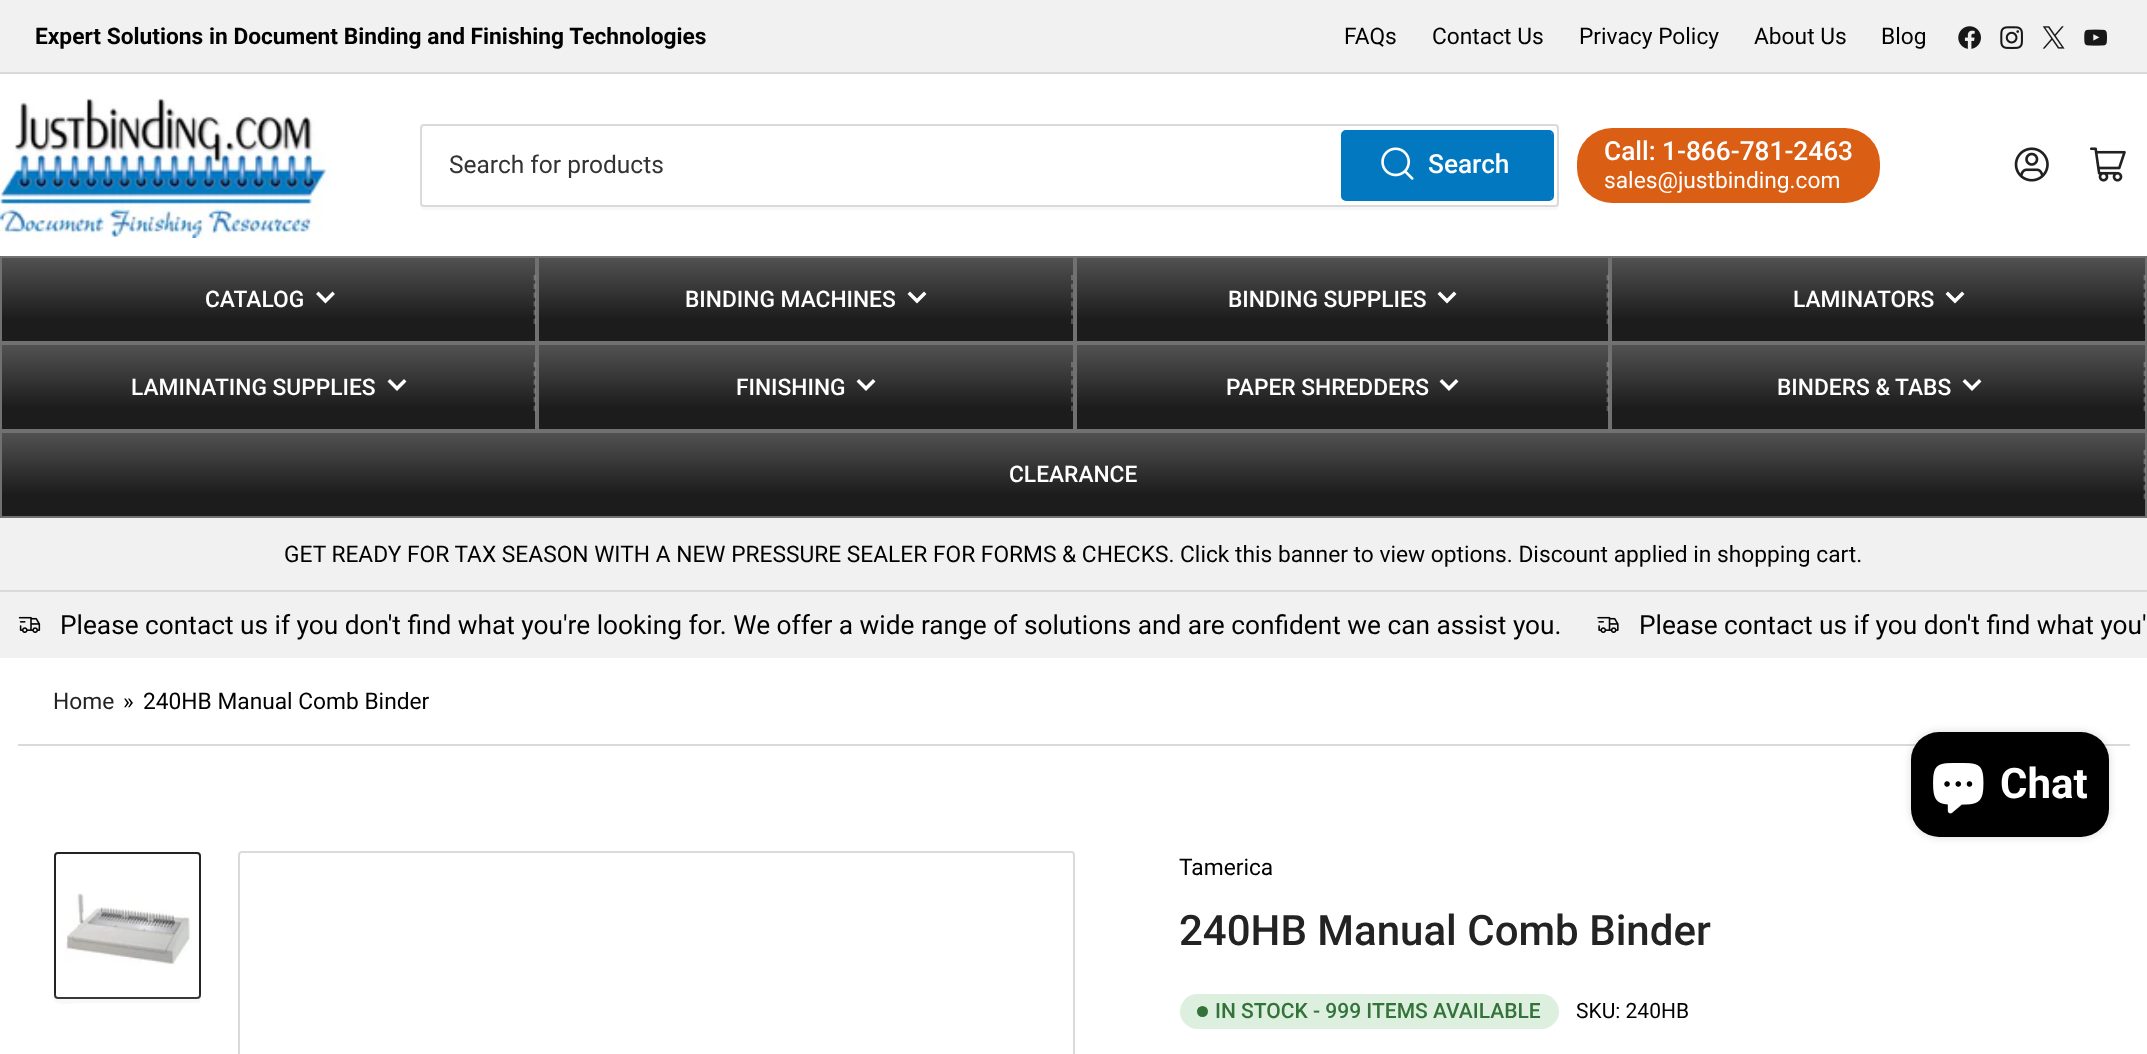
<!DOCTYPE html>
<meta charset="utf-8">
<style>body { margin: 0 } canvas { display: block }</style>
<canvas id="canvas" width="2147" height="1054"></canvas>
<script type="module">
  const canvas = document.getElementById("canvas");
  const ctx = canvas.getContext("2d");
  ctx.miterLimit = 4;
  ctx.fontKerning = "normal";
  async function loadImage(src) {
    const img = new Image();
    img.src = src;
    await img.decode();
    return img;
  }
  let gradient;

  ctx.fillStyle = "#ffffff";
  ctx.fillRect(0, 0, 2147, 1054);
  ctx.fillStyle = "#f1f1f1";
  ctx.fillRect(0, 0, 2147, 72);
  ctx.fillStyle = "#d9d9d9";
  ctx.fillRect(0, 72, 2147, 2);
  ctx.font = "bold 22.75px Roboto";
  ctx.fillStyle = "#000000";
  ctx.fillText("Expert Solutions in Document Binding and Finishing Technologies", 35, 44);
  ctx.font = "22.75px Roboto";
  ctx.fillText("FAQs", 1344, 44);
  ctx.fillText("Contact Us", 1432, 44);
  ctx.fillText("Privacy Policy", 1579, 44);
  ctx.fillText("About Us", 1754, 44);
  ctx.fillText("Blog", 1881, 44);
  ctx.drawImage(await loadImage("img1.png"), 1958, 26, 23, 23);
  ctx.drawImage(await loadImage("img2.png"), 2000, 26, 23, 23);
  ctx.drawImage(await loadImage("img3.png"), 2042, 26, 23, 23);
  ctx.drawImage(await loadImage("img4.png"), 2084, 29, 23, 17);
  ctx.drawImage(await loadImage("img5.png"), 0, 98, 329, 140);
  ctx.fillStyle = "#f8f8f8";
  ctx.beginPath();
  ctx.moveTo(420, 203);
  ctx.bezierCurveTo(420, 206, 420, 210, 424, 210);
  ctx.lineTo(1555, 210);
  ctx.bezierCurveTo(1558, 210, 1559, 207, 1559, 204);
  ctx.bezierCurveTo(1558, 206, 1557, 206, 1556, 206);
  ctx.lineTo(424, 206);
  ctx.bezierCurveTo(422, 206, 420, 205, 420, 203);
  ctx.closePath();
  ctx.fill();
  ctx.fillStyle = "#ffffff";
  ctx.beginPath();
  ctx.roundRect(421, 125, 1137, 81, 3);
  ctx.fill();
  ctx.strokeStyle = "#dadada";
  ctx.lineWidth = 2;
  ctx.stroke();
  ctx.font = "24.5px Roboto";
  ctx.fillStyle = "#333333";
  ctx.fillText("Search for products", 449, 173);
  ctx.beginPath();
  ctx.roundRect(1342, 131, 211, 69, 4);
  ctx.strokeStyle = "#0178c0";
  ctx.stroke();
  ctx.fillStyle = "#0178c0";
  ctx.beginPath();
  ctx.roundRect(1342, 131, 210, 69, 4);
  ctx.fill();
  ctx.drawImage(await loadImage("img6.png"), 1381, 147, 33, 33);
  ctx.font = "500 26.25px Roboto";
  ctx.fillStyle = "#ffffff";
  ctx.fillText("Search", 1428, 173);
  ctx.fillStyle = "#da5e13";
  ctx.beginPath();
  ctx.roundRect(1577, 128, 303, 75, 35);
  ctx.fill();
  ctx.fillStyle = "#ffffff";
  ctx.fillText("Call: 1-866-781-2463", 1604, 160);
  ctx.font = "22.75px Roboto";
  ctx.fillText("sales@justbinding.com", 1604, 188);
  ctx.drawImage(await loadImage("img7.png"), 2014, 147, 35, 35);
  ctx.drawImage(await loadImage("img8.png"), 2090, 147, 36, 35);
  gradient = ctx.createLinearGradient(269, 257, 269, 341);
  gradient.addColorStop(0, "#525252");
  gradient.addColorStop(0.75, "#1c1c1c");
  ctx.fillStyle = gradient;
  ctx.fillRect(2, 258, 533, 83);
  ctx.strokeStyle = "#717171";
  ctx.strokeRect(1, 257, 535, 85);
  ctx.font = "500 22.75px Roboto";
  ctx.fillStyle = "#ffffff";
  ctx.fillText("CATALOG", 205, 307);
  ctx.beginPath();
  ctx.moveTo(332.5, 294);
  ctx.lineTo(325.5, 301);
  ctx.lineTo(318.5, 294);
  ctx.strokeStyle = "#ffffff";
  ctx.lineWidth = 3.5;
  ctx.lineCap = "square";
  ctx.stroke();
  ctx.beginPath();
  ctx.moveTo(534.5, 275);
  ctx.lineTo(534.5, 324);
  ctx.strokeStyle = "rgba(255, 255, 255, 0.25)";
  ctx.lineWidth = 1.8;
  ctx.lineCap = "butt";
  ctx.setLineDash([5.25, 3.5]);
  ctx.stroke();
  gradient = ctx.createLinearGradient(806, 257, 806, 341);
  gradient.addColorStop(0, "#525252");
  gradient.addColorStop(0.75, "#1c1c1c");
  ctx.fillStyle = gradient;
  ctx.fillRect(539, 258, 534, 83);
  ctx.strokeStyle = "#717171";
  ctx.lineWidth = 2;
  ctx.setLineDash([]);
  ctx.strokeRect(538, 257, 536, 85);
  ctx.fillStyle = "#ffffff";
  ctx.fillText("BINDING MACHINES", 685, 307);
  ctx.beginPath();
  ctx.moveTo(924, 294);
  ctx.lineTo(917, 301);
  ctx.lineTo(910, 294);
  ctx.strokeStyle = "#ffffff";
  ctx.lineWidth = 3.5;
  ctx.lineCap = "square";
  ctx.stroke();
  ctx.beginPath();
  ctx.moveTo(1072, 275);
  ctx.lineTo(1072, 324);
  ctx.strokeStyle = "rgba(255, 255, 255, 0.25)";
  ctx.lineWidth = 1.8;
  ctx.lineCap = "butt";
  ctx.setLineDash([5.25, 3.5]);
  ctx.stroke();
  gradient = ctx.createLinearGradient(1342, 257, 1342, 341);
  gradient.addColorStop(0, "#525252");
  gradient.addColorStop(0.75, "#1c1c1c");
  ctx.fillStyle = gradient;
  ctx.fillRect(1077, 258, 531, 83);
  ctx.strokeStyle = "#717171";
  ctx.lineWidth = 2;
  ctx.setLineDash([]);
  ctx.strokeRect(1076, 257, 533, 85);
  ctx.fillStyle = "#ffffff";
  ctx.fillText("BINDING SUPPLIES", 1228, 307);
  ctx.beginPath();
  ctx.moveTo(1454, 294);
  ctx.lineTo(1447, 301);
  ctx.lineTo(1440, 294);
  ctx.strokeStyle = "#ffffff";
  ctx.lineWidth = 3.5;
  ctx.lineCap = "square";
  ctx.stroke();
  ctx.beginPath();
  ctx.moveTo(1607.5, 275);
  ctx.lineTo(1607.5, 324);
  ctx.strokeStyle = "rgba(255, 255, 255, 0.25)";
  ctx.lineWidth = 1.8;
  ctx.lineCap = "butt";
  ctx.setLineDash([5.25, 3.5]);
  ctx.stroke();
  gradient = ctx.createLinearGradient(1879, 257, 1879, 341);
  gradient.addColorStop(0, "#525252");
  gradient.addColorStop(0.75, "#1c1c1c");
  ctx.fillStyle = gradient;
  ctx.fillRect(1612, 258, 533, 83);
  ctx.strokeStyle = "#717171";
  ctx.lineWidth = 2;
  ctx.setLineDash([]);
  ctx.strokeRect(1611, 257, 535, 85);
  ctx.fillStyle = "#ffffff";
  ctx.fillText("LAMINATORS", 1793, 307);
  ctx.beginPath();
  ctx.moveTo(1962, 294);
  ctx.lineTo(1955, 301);
  ctx.lineTo(1948, 294);
  ctx.strokeStyle = "#ffffff";
  ctx.lineWidth = 3.5;
  ctx.lineCap = "square";
  ctx.stroke();
  ctx.beginPath();
  ctx.moveTo(2144.5, 275);
  ctx.lineTo(2144.5, 324);
  ctx.strokeStyle = "rgba(255, 255, 255, 0.25)";
  ctx.lineWidth = 1.8;
  ctx.lineCap = "butt";
  ctx.setLineDash([5.25, 3.5]);
  ctx.stroke();
  gradient = ctx.createLinearGradient(269, 345, 269, 429);
  gradient.addColorStop(0, "#525252");
  gradient.addColorStop(0.75, "#1c1c1c");
  ctx.fillStyle = gradient;
  ctx.fillRect(2, 345, 533, 84);
  ctx.strokeStyle = "#717171";
  ctx.lineWidth = 2;
  ctx.setLineDash([]);
  ctx.strokeRect(1, 344, 535, 86);
  ctx.fillStyle = "#ffffff";
  ctx.fillText("LAMINATING SUPPLIES", 131, 395);
  ctx.beginPath();
  ctx.moveTo(404, 381.5);
  ctx.lineTo(397, 388.5);
  ctx.lineTo(390, 381.5);
  ctx.strokeStyle = "#ffffff";
  ctx.lineWidth = 3.5;
  ctx.lineCap = "square";
  ctx.stroke();
  ctx.beginPath();
  ctx.moveTo(534.5, 362);
  ctx.lineTo(534.5, 411);
  ctx.strokeStyle = "rgba(255, 255, 255, 0.25)";
  ctx.lineWidth = 1.8;
  ctx.lineCap = "butt";
  ctx.setLineDash([5.25, 3.5]);
  ctx.stroke();
  gradient = ctx.createLinearGradient(806, 345, 806, 429);
  gradient.addColorStop(0, "#525252");
  gradient.addColorStop(0.75, "#1c1c1c");
  ctx.fillStyle = gradient;
  ctx.fillRect(539, 345, 534, 84);
  ctx.strokeStyle = "#717171";
  ctx.lineWidth = 2;
  ctx.setLineDash([]);
  ctx.strokeRect(538, 344, 536, 86);
  ctx.fillStyle = "#ffffff";
  ctx.fillText("FINISHING", 736, 395);
  ctx.beginPath();
  ctx.moveTo(873, 381.5);
  ctx.lineTo(866, 388.5);
  ctx.lineTo(859, 381.5);
  ctx.strokeStyle = "#ffffff";
  ctx.lineWidth = 3.5;
  ctx.lineCap = "square";
  ctx.stroke();
  ctx.beginPath();
  ctx.moveTo(1072, 362);
  ctx.lineTo(1072, 411);
  ctx.strokeStyle = "rgba(255, 255, 255, 0.25)";
  ctx.lineWidth = 1.8;
  ctx.lineCap = "butt";
  ctx.setLineDash([5.25, 3.5]);
  ctx.stroke();
  gradient = ctx.createLinearGradient(1342, 345, 1342, 429);
  gradient.addColorStop(0, "#525252");
  gradient.addColorStop(0.75, "#1c1c1c");
  ctx.fillStyle = gradient;
  ctx.fillRect(1077, 345, 531, 84);
  ctx.strokeStyle = "#717171";
  ctx.lineWidth = 2;
  ctx.setLineDash([]);
  ctx.strokeRect(1076, 344, 533, 86);
  ctx.fillStyle = "#ffffff";
  ctx.fillText("PAPER SHREDDERS", 1226, 395);
  ctx.beginPath();
  ctx.moveTo(1456, 381.5);
  ctx.lineTo(1449, 388.5);
  ctx.lineTo(1442, 381.5);
  ctx.strokeStyle = "#ffffff";
  ctx.lineWidth = 3.5;
  ctx.lineCap = "square";
  ctx.stroke();
  ctx.beginPath();
  ctx.moveTo(1607.5, 362);
  ctx.lineTo(1607.5, 411);
  ctx.strokeStyle = "rgba(255, 255, 255, 0.25)";
  ctx.lineWidth = 1.8;
  ctx.lineCap = "butt";
  ctx.setLineDash([5.25, 3.5]);
  ctx.stroke();
  gradient = ctx.createLinearGradient(1879, 345, 1879, 429);
  gradient.addColorStop(0, "#525252");
  gradient.addColorStop(0.75, "#1c1c1c");
  ctx.fillStyle = gradient;
  ctx.fillRect(1612, 345, 533, 84);
  ctx.strokeStyle = "#717171";
  ctx.lineWidth = 2;
  ctx.setLineDash([]);
  ctx.strokeRect(1611, 344, 535, 86);
  ctx.fillStyle = "#ffffff";
  ctx.fillText("BINDERS & TABS", 1777, 395);
  ctx.beginPath();
  ctx.moveTo(1979, 381.5);
  ctx.lineTo(1972, 388.5);
  ctx.lineTo(1965, 381.5);
  ctx.strokeStyle = "#ffffff";
  ctx.lineWidth = 3.5;
  ctx.lineCap = "square";
  ctx.stroke();
  ctx.beginPath();
  ctx.moveTo(2144.5, 362);
  ctx.lineTo(2144.5, 411);
  ctx.strokeStyle = "rgba(255, 255, 255, 0.25)";
  ctx.lineWidth = 1.8;
  ctx.lineCap = "butt";
  ctx.setLineDash([5.25, 3.5]);
  ctx.stroke();
  gradient = ctx.createLinearGradient(1074, 432, 1074, 516);
  gradient.addColorStop(0, "#525252");
  gradient.addColorStop(0.75, "#1c1c1c");
  ctx.fillStyle = gradient;
  ctx.fillRect(2, 433, 2143, 83);
  ctx.strokeStyle = "#717171";
  ctx.lineWidth = 2;
  ctx.setLineDash([]);
  ctx.strokeRect(1, 432, 2145, 85);
  ctx.fillStyle = "#ffffff";
  ctx.fillText("CLEARANCE", 1009, 482);
  ctx.beginPath();
  ctx.moveTo(2144.5, 450);
  ctx.lineTo(2144.5, 499);
  ctx.strokeStyle = "rgba(255, 255, 255, 0.25)";
  ctx.lineWidth = 1.8;
  ctx.setLineDash([5.25, 3.5]);
  ctx.stroke();
  ctx.fillStyle = "#f1f1f1";
  ctx.fillRect(0, 518, 2147, 72);
  ctx.fillStyle = "#d9d9d9";
  ctx.fillRect(0, 590, 2147, 2);
  ctx.font = "22.75px Roboto";
  ctx.fillStyle = "#000000";
  ctx.fillText("GET READY FOR TAX SEASON WITH A NEW PRESSURE SEALER FOR FORMS & CHECKS. Click this banner to view options. Discount applied in shopping cart.", 284, 562);
  ctx.fillStyle = "#f1f1f1";
  ctx.fillRect(0, 592, 2147, 66);
  ctx.drawImage(await loadImage("img9.png"), 18, 616, 23, 17);
  ctx.font = "26.25px Roboto";
  ctx.fillStyle = "#000000";
  ctx.fillText("Please contact us if you don't find what you're looking for. We offer a wide range of solutions and are confident we can assist you.", 60, 634);
  ctx.drawImage(await loadImage("img10.png"), 1597, 616, 22, 17);
  ctx.fillText("Please contact us if you don't find what you'", 1639, 634);
  ctx.fillStyle = "#dadada";
  ctx.fillRect(18, 744, 2112, 2);
  ctx.font = "22.75px Roboto";
  ctx.fillStyle = "#232323";
  ctx.fillText("Home", 53, 709);
  ctx.fillStyle = "#000000";
  ctx.fillText("»", 123, 709);
  ctx.fillText("240HB Manual Comb Binder", 143, 709);
  ctx.fillStyle = "#f8f8f8";
  ctx.beginPath();
  ctx.moveTo(54, 859);
  ctx.lineTo(54, 999);
  ctx.bezierCurveTo(54, 1007, 73, 1003, 81, 1003);
  ctx.lineTo(197, 1003);
  ctx.bezierCurveTo(201, 1003, 201, 1000, 201, 997);
  ctx.bezierCurveTo(200, 998, 199, 999, 198, 999);
  ctx.lineTo(58, 999);
  ctx.bezierCurveTo(56, 999, 54, 998, 54, 996);
  ctx.closePath();
  ctx.fill();
  ctx.beginPath();
  ctx.roundRect(55, 853, 145, 145, 3);
  ctx.strokeStyle = "#232323";
  ctx.lineWidth = 2;
  ctx.setLineDash([]);
  ctx.stroke();
  ctx.drawImage(await loadImage("img11.png"), 63, 893, 129, 72);
  gradient = ctx.createLinearGradient(128, 1054, 128, 992);
  gradient.addColorStop(0, "#ffffff");
  gradient.addColorStop(1, "rgba(255, 255, 255, 0)");
  ctx.fillStyle = gradient;
  ctx.fillRect(54, 993, 147, 6);
  ctx.beginPath();
  ctx.roundRect(239, 852, 835, 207, 3);
  ctx.strokeStyle = "#dadada";
  ctx.stroke();
  ctx.fillStyle = "#000000";
  ctx.fillText("Tamerica", 1179, 875);
  ctx.font = "500 42px Roboto";
  ctx.fillStyle = "#232323";
  ctx.fillText("240HB Manual Comb Binder", 1179, 945);
  ctx.fillStyle = "#ddf0df";
  ctx.beginPath();
  ctx.roundRect(1180, 994, 379, 35, 17.5);
  ctx.fill();
  ctx.fillStyle = "#337239";
  ctx.beginPath();
  ctx.arc(1202.5, 1011.5, 5.5, 0, Math.PI * 2);
  ctx.fill();
  ctx.font = "500 21px Roboto";
  ctx.fillText("IN STOCK - 999 ITEMS AVAILABLE", 1215, 1018);
  ctx.font = "21px Roboto";
  ctx.fillStyle = "#000000";
  ctx.fillText("SKU: 240HB", 1576, 1018);
  ctx.fillStyle = "rgba(0, 0, 0, 0.15)";
  ctx.filter = "blur(4.5px)";
  ctx.beginPath();
  ctx.roundRect(1911, 732, 198, 105, 28);
  ctx.fill();
  ctx.filter = "none";
  ctx.fillStyle = "#000000";
  ctx.beginPath();
  ctx.roundRect(1911, 732, 198, 105, 28);
  ctx.fill();
  ctx.drawImage(await loadImage("img12.png"), 1933, 763, 51, 51);
  ctx.font = "bold 42px Roboto";
  ctx.fillStyle = "#ffffff";
  ctx.fillText("Chat", 2000, 798);
</script>
